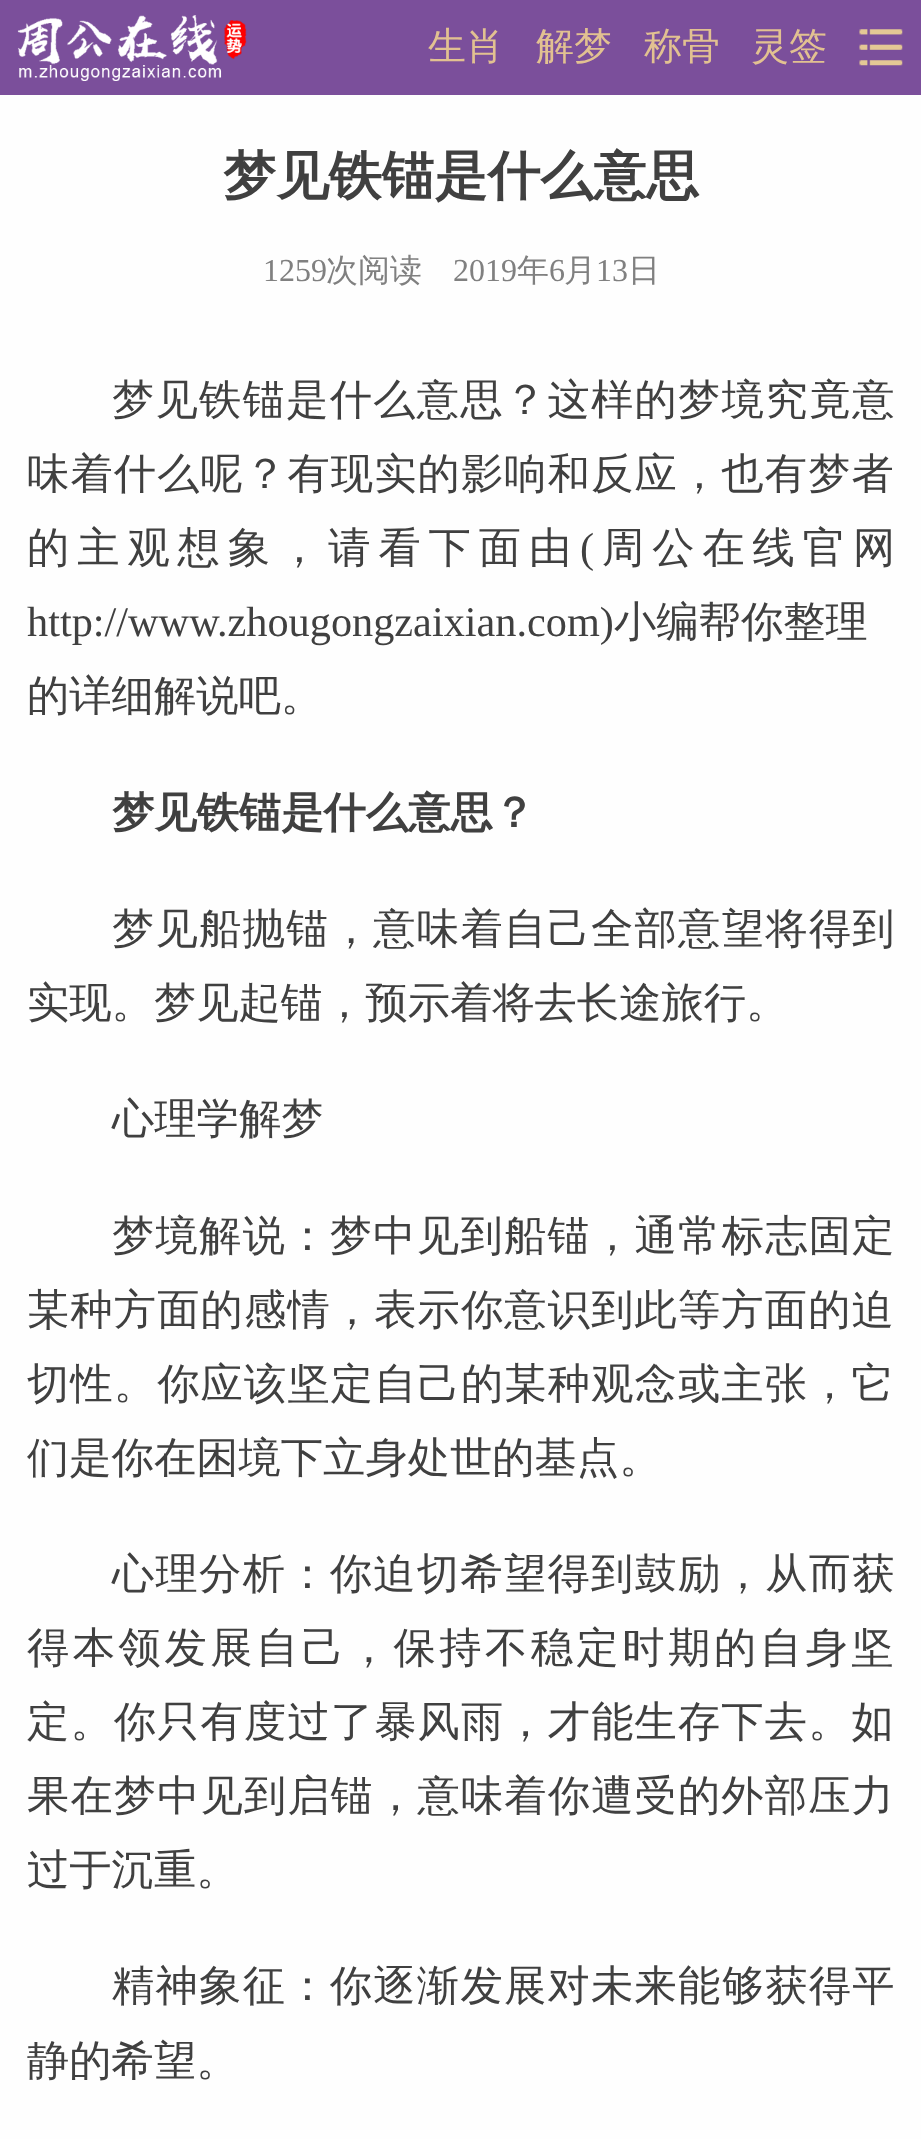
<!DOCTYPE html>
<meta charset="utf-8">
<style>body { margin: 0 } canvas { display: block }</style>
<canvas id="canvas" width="921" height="2139"></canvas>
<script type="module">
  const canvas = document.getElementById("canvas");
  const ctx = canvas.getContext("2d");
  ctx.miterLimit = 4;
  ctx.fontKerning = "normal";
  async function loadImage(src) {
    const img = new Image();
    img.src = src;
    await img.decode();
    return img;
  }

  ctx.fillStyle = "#fefefe";
  ctx.fillRect(0, 0, 921, 2139);
  ctx.fillStyle = "#7b4f9b";
  ctx.fillRect(0, 0, 921, 95);
  ctx.drawImage(await loadImage("img1.png"), 17, 15, 230, 66);
  ctx.font = "500 38px WenQuanYi Zen Hei";
  ctx.fillStyle = "#e2c191";
  ctx.fillText("生肖", 428, 59);
  ctx.fillText("解梦", 536, 59);
  ctx.fillText("称骨", 644, 59);
  ctx.fillText("灵签", 751, 59);
  ctx.drawImage(await loadImage("img2.png"), 859, 29, 44, 37);
  ctx.font = "bold 52.9px WenQuanYi Zen Hei";
  ctx.fillStyle = "#404040";
  ctx.fillText("梦见铁锚是什么意思", 223, 194);
  ctx.font = "32px Liberation Serif";
  ctx.fillStyle = "#808080";
  ctx.fillText("1259", 263, 281);
  ctx.font = "500 32px WenQuanYi Zen Hei";
  ctx.fillText("次阅读", 326, 281);
  ctx.font = "32px Liberation Serif";
  ctx.fillText("2019", 453, 281);
  ctx.font = "500 32px WenQuanYi Zen Hei";
  ctx.fillText("年", 517, 281);
  ctx.font = "32px Liberation Serif";
  ctx.fillText("6", 549, 281);
  ctx.font = "500 32px WenQuanYi Zen Hei";
  ctx.fillText("月", 564, 281);
  ctx.font = "32px Liberation Serif";
  ctx.fillText("13", 596, 281);
  ctx.font = "500 32px WenQuanYi Zen Hei";
  ctx.fillText("日", 628, 281);
  ctx.letterSpacing = "1.25px";
  ctx.font = "500 42.3px WenQuanYi Zen Hei";
  ctx.fillStyle = "#404040";
  ctx.fillText("梦见铁锚是什么意思？这样的梦境究竟意", 112, 414);
  ctx.letterSpacing = "1.1px";
  ctx.fillText("味着什么呢？有现实的影响和反应，也有梦者", 27, 488);
  ctx.letterSpacing = "7.9px";
  ctx.fillText("的主观想象，请看下面由", 27, 562);
  ctx.font = "42.3px Liberation Serif";
  ctx.fillText("(", 580, 562);
  ctx.font = "500 42.3px WenQuanYi Zen Hei";
  ctx.fillText("周公在线官网", 602, 562);
  ctx.letterSpacing = "0px";
  ctx.font = "42.3px Liberation Serif";
  ctx.fillText("http://www.zhougongzaixian.com)", 27, 636);
  ctx.font = "500 42.3px WenQuanYi Zen Hei";
  ctx.fillText("小编帮你整理", 614, 636);
  ctx.fillText("的详细解说吧。", 27, 710);
  ctx.font = "bold 42.3px WenQuanYi Zen Hei";
  ctx.fillText("梦见铁锚是什么意思？", 112, 827);
  ctx.letterSpacing = "1.25px";
  ctx.font = "500 42.3px WenQuanYi Zen Hei";
  ctx.fillText("梦见船抛锚，意味着自己全部意望将得到", 112, 943);
  ctx.letterSpacing = "0px";
  ctx.fillText("实现。梦见起锚，预示着将去长途旅行。", 27, 1017);
  ctx.fillText("心理学解梦", 112, 1133);
  ctx.letterSpacing = "1.25px";
  ctx.fillText("梦境解说：梦中见到船锚，通常标志固定", 112, 1250);
  ctx.letterSpacing = "1.1px";
  ctx.fillText("某种方面的感情，表示你意识到此等方面的迫", 27, 1324);
  ctx.fillText("切性。你应该坚定自己的某种观念或主张，它", 27, 1398);
  ctx.letterSpacing = "0px";
  ctx.fillText("们是你在困境下立身处世的基点。", 27, 1472);
  ctx.letterSpacing = "1.25px";
  ctx.fillText("心理分析：你迫切希望得到鼓励，从而获", 112, 1588);
  ctx.letterSpacing = "3.5px";
  ctx.fillText("得本领发展自己，保持不稳定时期的自身坚", 27, 1662);
  ctx.letterSpacing = "1.1px";
  ctx.fillText("定。你只有度过了暴风雨，才能生存下去。如", 27, 1736);
  ctx.fillText("果在梦中见到启锚，意味着你遭受的外部压力", 27, 1810);
  ctx.letterSpacing = "0px";
  ctx.fillText("过于沉重。", 27, 1884);
  ctx.letterSpacing = "1.25px";
  ctx.fillText("精神象征：你逐渐发展对未来能够获得平", 112, 2000);
  ctx.letterSpacing = "0px";
  ctx.fillText("静的希望。", 27, 2075);
</script>
